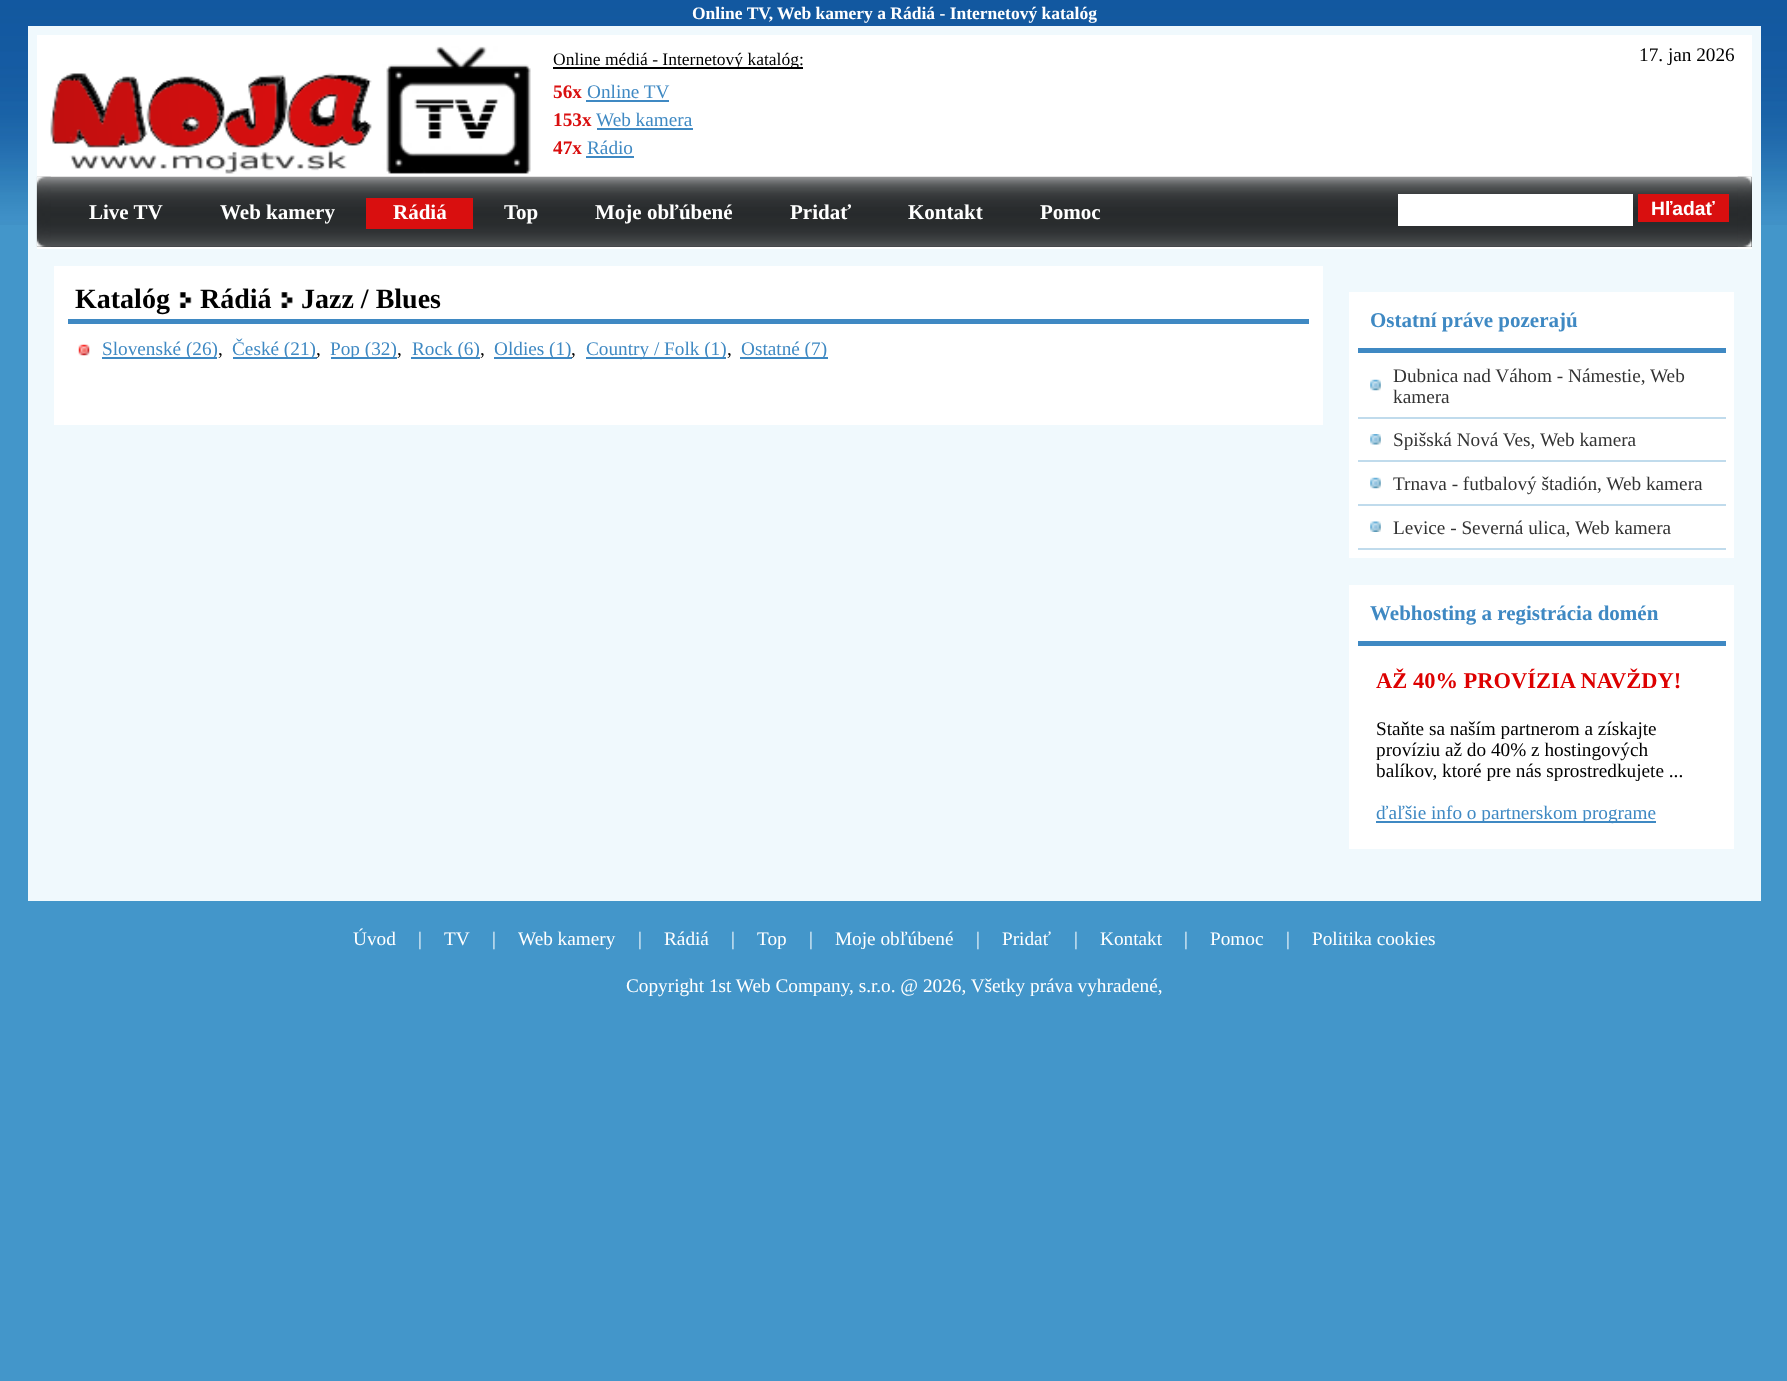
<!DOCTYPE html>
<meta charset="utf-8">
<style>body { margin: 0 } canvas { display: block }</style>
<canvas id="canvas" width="1787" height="1381"></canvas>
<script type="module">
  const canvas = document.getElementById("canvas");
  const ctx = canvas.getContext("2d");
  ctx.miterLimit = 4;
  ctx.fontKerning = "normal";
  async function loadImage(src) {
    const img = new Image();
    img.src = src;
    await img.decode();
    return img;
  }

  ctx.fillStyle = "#4396ca";
  ctx.fillRect(0, 0, 1787, 1381);
  ctx.drawImage(await loadImage("img1.png"), 0, 0, 1787, 225);
  ctx.font = "bold 17.5px Liberation Serif";
  ctx.fillStyle = "#ffffff";
  ctx.fillText("Online TV, Web kamery a Rádiá - Internetový katalóg", 692, 19);
  ctx.fillRect(37, 35, 1715, 214);
  ctx.fillStyle = "#f0f9fd";
  ctx.fillRect(37, 26, 1715, 9);
  ctx.fillRect(1752, 26, 9, 867);
  ctx.fillRect(28, 26, 9, 875);
  ctx.drawImage(await loadImage("img2.png"), 50, 46, 481, 128);
  ctx.fillStyle = "#000000";
  ctx.fillRect(553, 67, 250, 2);
  ctx.font = "17.5px Liberation Serif";
  ctx.fillText("Online médiá - Internetový katalóg:", 553, 65);
  ctx.font = "bold 19.25px Liberation Serif";
  ctx.fillStyle = "#d90f0f";
  ctx.fillText("56x", 553, 98);
  ctx.font = "19.25px Liberation Serif";
  ctx.fillStyle = "#3f89c3";
  ctx.fillText("Online TV", 587, 98);
  ctx.fillRect(586, 100, 83, 2);
  ctx.font = "bold 19.25px Liberation Serif";
  ctx.fillStyle = "#d90f0f";
  ctx.fillText("153x", 553, 126);
  ctx.font = "19.25px Liberation Serif";
  ctx.fillStyle = "#3f89c3";
  ctx.fillText("Web kamera", 596, 126);
  ctx.fillRect(597, 128, 96, 2);
  ctx.font = "bold 19.25px Liberation Serif";
  ctx.fillStyle = "#d90f0f";
  ctx.fillText("47x", 553, 154);
  ctx.font = "19.25px Liberation Serif";
  ctx.fillStyle = "#3f89c3";
  ctx.fillText("Rádio", 587, 154);
  ctx.fillRect(586, 156, 48, 2);
  ctx.fillStyle = "#000000";
  ctx.fillText("17. jan 2026", 1639, 61);
  ctx.fillStyle = "#f0f9fd";
  ctx.fillRect(37, 893, 1724, 8);
  ctx.fillStyle = "#282b2d";
  ctx.fillRect(37, 177, 1715, 70);
  ctx.drawImage(await loadImage("img3.png"), 36, 176, 1716, 71);
  ctx.drawImage(await loadImage("img4.png"), 36, 176, 15, 71);
  ctx.font = "bold 21px Liberation Serif";
  ctx.fillStyle = "#ffffff";
  ctx.fillText("Live TV", 89, 219);
  ctx.fillText("Web kamery", 220, 219);
  ctx.fillStyle = "#d90f0f";
  ctx.fillRect(366, 198, 107, 31);
  ctx.fillStyle = "#ffffff";
  ctx.fillText("Rádiá", 393, 219);
  ctx.fillText("Top", 504, 219);
  ctx.fillText("Moje obľúbené", 595, 219);
  ctx.fillText("Pridať", 790, 219);
  ctx.fillText("Kontakt", 908, 219);
  ctx.fillText("Pomoc", 1040, 219);
  ctx.fillRect(1398, 194, 235, 32);
  ctx.fillStyle = "#d90f0f";
  ctx.fillRect(1638, 194, 91, 28);
  ctx.font = "bold 19.25px Liberation Sans";
  ctx.fillStyle = "#ffffff";
  ctx.fillText("Hľadať", 1651, 215);
  ctx.drawImage(await loadImage("img5.png"), 1737, 176, 15, 71);
  ctx.fillStyle = "#f0f9fd";
  ctx.fillRect(37, 249, 1715, 644);
  ctx.fillStyle = "#ffffff";
  ctx.fillRect(54, 266, 1269, 159);
  ctx.font = "bold 28px Liberation Serif";
  ctx.fillStyle = "#000000";
  ctx.fillText("Katalóg", 75, 308);
  ctx.drawImage(await loadImage("img6.png"), 179, 292, 13, 16);
  ctx.fillText("Rádiá", 200, 308);
  ctx.drawImage(await loadImage("img7.png"), 281, 292, 12, 16);
  ctx.fillText("Jazz / Blues", 301, 308);
  ctx.fillStyle = "#3f89c3";
  ctx.fillRect(68, 319, 1241, 5);
  ctx.drawImage(await loadImage("img8.png"), 78, 344, 12, 12);
  ctx.fillRect(102, 357, 115, 2);
  ctx.font = "19.25px Liberation Serif";
  ctx.fillText("Slovenské (26)", 102, 355);
  ctx.fillStyle = "#000000";
  ctx.fillText(",", 218, 355);
  ctx.fillStyle = "#3f89c3";
  ctx.fillRect(233, 357, 84, 2);
  ctx.fillText("České (21)", 232, 355);
  ctx.fillStyle = "#000000";
  ctx.fillText(",", 316, 355);
  ctx.fillStyle = "#3f89c3";
  ctx.fillRect(331, 357, 66, 2);
  ctx.fillText("Pop (32)", 330, 355);
  ctx.fillStyle = "#000000";
  ctx.fillText(",", 397, 355);
  ctx.fillStyle = "#3f89c3";
  ctx.fillRect(411, 357, 69, 2);
  ctx.fillText("Rock (6)", 412, 355);
  ctx.fillStyle = "#000000";
  ctx.fillText(",", 480, 355);
  ctx.fillStyle = "#3f89c3";
  ctx.fillRect(494, 357, 78, 2);
  ctx.fillText("Oldies (1)", 494, 355);
  ctx.fillStyle = "#000000";
  ctx.fillText(",", 571, 355);
  ctx.fillStyle = "#3f89c3";
  ctx.fillRect(586, 357, 140, 2);
  ctx.fillText("Country / Folk (1)", 586, 355);
  ctx.fillStyle = "#000000";
  ctx.fillText(",", 727, 355);
  ctx.fillStyle = "#3f89c3";
  ctx.fillRect(740, 357, 88, 2);
  ctx.fillText("Ostatné (7)", 741, 355);
  ctx.fillStyle = "#ffffff";
  ctx.fillRect(1349, 292, 385, 557);
  ctx.fillStyle = "#3f89c3";
  ctx.fillRect(1358, 348, 368, 5);
  ctx.font = "bold 21px Liberation Serif";
  ctx.fillText("Ostatní práve pozerajú", 1370, 327);
  ctx.drawImage(await loadImage("img9.png"), 1370, 379, 11, 12);
  ctx.fillStyle = "#c0dbec";
  ctx.fillRect(1358, 417, 368, 2);
  ctx.font = "19.25px Liberation Serif";
  ctx.fillStyle = "#333333";
  ctx.fillText("Dubnica nad Váhom - Námestie, Web", 1393, 382);
  ctx.fillText("kamera", 1393, 403);
  ctx.drawImage(await loadImage("img10.png"), 1370, 434, 11, 11);
  ctx.fillStyle = "#c0dbec";
  ctx.fillRect(1358, 460, 368, 2);
  ctx.fillStyle = "#333333";
  ctx.fillText("Spišská Nová Ves, Web kamera", 1393, 446);
  ctx.drawImage(await loadImage("img9.png"), 1370, 477, 11, 12);
  ctx.fillStyle = "#c0dbec";
  ctx.fillRect(1358, 504, 368, 2);
  ctx.fillStyle = "#333333";
  ctx.fillText("Trnava - futbalový štadión, Web kamera", 1393, 490);
  ctx.drawImage(await loadImage("img11.png"), 1370, 521, 11, 11);
  ctx.fillStyle = "#c0dbec";
  ctx.fillRect(1358, 548, 368, 2);
  ctx.fillStyle = "#333333";
  ctx.fillText("Levice - Severná ulica, Web kamera", 1393, 534);
  ctx.fillStyle = "#f0f9fd";
  ctx.fillRect(1349, 558, 385, 27);
  ctx.fillStyle = "#3f89c3";
  ctx.fillRect(1358, 641, 368, 5);
  ctx.font = "bold 21px Liberation Serif";
  ctx.fillText("Webhosting a registrácia domén", 1370, 620);
  ctx.font = "bold 22.5px Liberation Serif";
  ctx.fillStyle = "#dd0000";
  ctx.fillText("AŽ 40% PROVÍZIA NAVŽDY!", 1376, 688);
  ctx.font = "19.25px Liberation Serif";
  ctx.fillStyle = "#000000";
  ctx.fillText("Staňte sa naším partnerom a získajte", 1376, 735);
  ctx.fillText("províziu až do 40% z hostingových", 1376, 756);
  ctx.fillText("balíkov, ktoré pre nás sprostredkujete ...", 1376, 777);
  ctx.fillStyle = "#3f89c3";
  ctx.fillRect(1376, 821, 280, 2);
  ctx.fillText("ďaľšie info o partnerskom programe", 1376, 819);
  ctx.fillStyle = "#ffffff";
  ctx.fillText("Úvod", 353, 945);
  ctx.fillText("|", 418, 945);
  ctx.fillText("TV", 444, 945);
  ctx.fillText("|", 492, 945);
  ctx.fillText("Web kamery", 518, 945);
  ctx.fillText("|", 638, 945);
  ctx.fillText("Rádiá", 664, 945);
  ctx.fillText("|", 731, 945);
  ctx.fillText("Top", 757, 945);
  ctx.fillText("|", 809, 945);
  ctx.fillText("Moje obľúbené", 835, 945);
  ctx.fillText("|", 976, 945);
  ctx.fillText("Pridať", 1002, 945);
  ctx.fillText("|", 1074, 945);
  ctx.fillText("Kontakt", 1100, 945);
  ctx.fillText("|", 1184, 945);
  ctx.fillText("Pomoc", 1210, 945);
  ctx.fillText("|", 1286, 945);
  ctx.fillText("Politika cookies", 1312, 945);
  ctx.fillText("Copyright 1st Web Company, s.r.o. @ 2026, Všetky práva vyhradené,", 626, 992);
</script>
